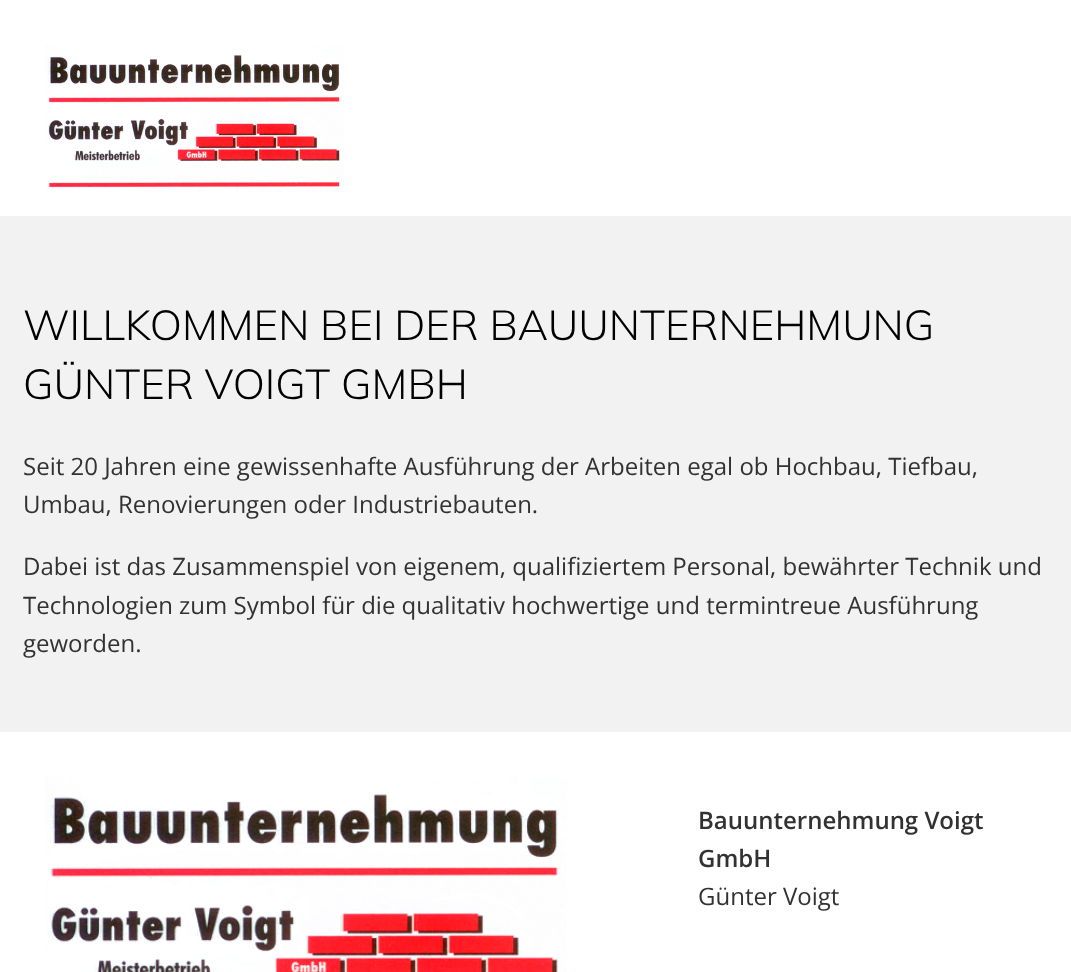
<!DOCTYPE html>
<meta charset="utf-8">
<style>body { margin: 0 } canvas { display: block }</style>
<canvas id="canvas" width="1071" height="972"></canvas>
<script type="module">
  const canvas = document.getElementById("canvas");
  const ctx = canvas.getContext("2d");
  ctx.miterLimit = 4;
  ctx.fontKerning = "normal";
  async function loadImage(src) {
    const img = new Image();
    img.src = src;
    await img.decode();
    return img;
  }

  ctx.fillStyle = "#ffffff";
  ctx.fillRect(0, 0, 1071, 972);
  ctx.drawImage(await loadImage("img1.png"), 45, 45, 299, 147);
  ctx.fillStyle = "#f2f2f2";
  ctx.fillRect(0, 216, 1071, 516);
  ctx.font = "200 42px Mulish";
  ctx.fillStyle = "#000000";
  ctx.fillText("WILLKOMMEN BEI DER BAUUNTERNEHMUNG", 23, 340);
  ctx.fillText("GÜNTER VOIGT GMBH", 23, 399);
  ctx.font = "24px Open Sans";
  ctx.fillStyle = "#323232";
  ctx.fillText("Seit 20 Jahren eine gewissenhafte Ausführung der Arbeiten egal ob Hochbau, Tiefbau,", 23, 475);
  ctx.fillText("Umbau, Renovierungen oder Industriebauten.", 23, 513);
  ctx.fillText("Dabei ist das Zusammenspiel von eigenem, qualifiziertem Personal, bewährter Technik und", 23, 575);
  ctx.fillText("Technologien zum Symbol für die qualitativ hochwertige und termintreue Ausführung", 23, 614);
  ctx.fillText("geworden.", 23, 652);
  ctx.drawImage(await loadImage("img2.png"), 45, 777, 522, 195);
  ctx.font = "600 24px Open Sans";
  ctx.fillText("Bauunternehmung Voigt", 698, 829);
  ctx.fillText("GmbH", 698, 867);
  ctx.font = "24px Open Sans";
  ctx.fillText("Günter Voigt", 698, 905);
</script>
